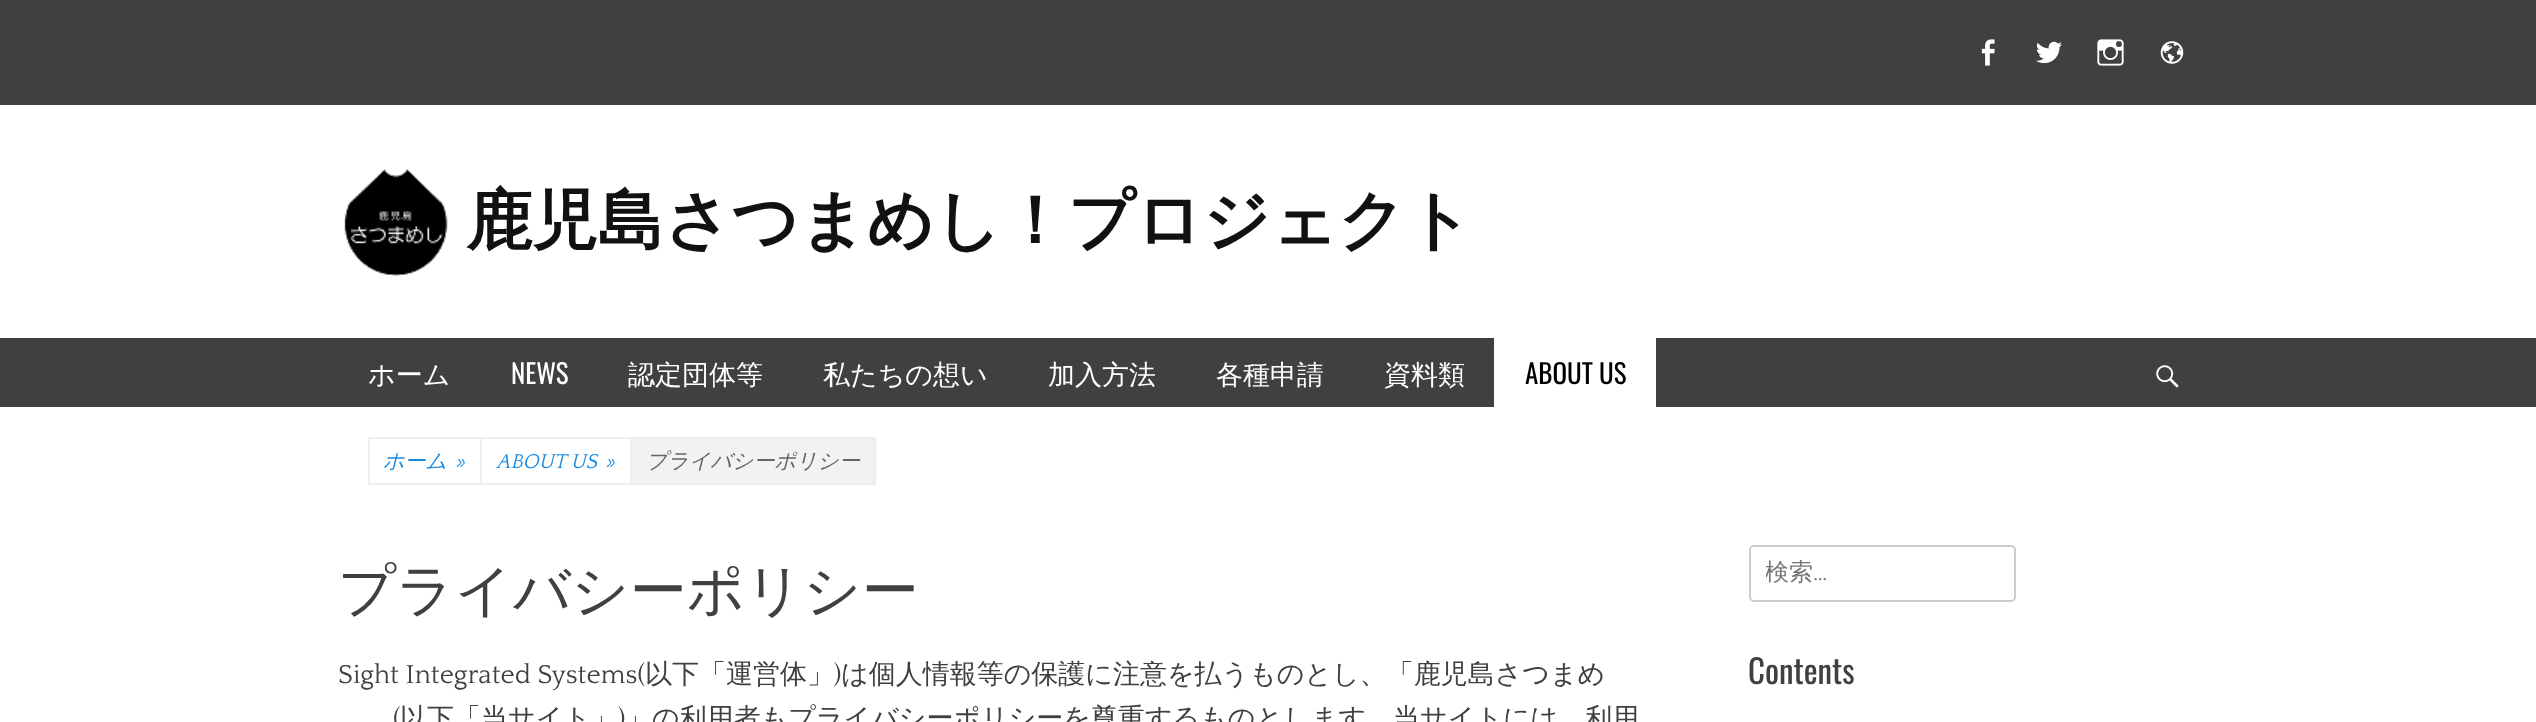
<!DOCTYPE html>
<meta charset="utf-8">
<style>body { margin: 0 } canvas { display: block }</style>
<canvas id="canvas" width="2536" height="722"></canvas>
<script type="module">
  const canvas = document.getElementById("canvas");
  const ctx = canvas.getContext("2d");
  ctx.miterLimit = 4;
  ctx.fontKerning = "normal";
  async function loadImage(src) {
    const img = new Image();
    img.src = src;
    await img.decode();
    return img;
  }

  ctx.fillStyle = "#ffffff";
  ctx.fillRect(0, 0, 2536, 722);
  ctx.fillStyle = "#404040";
  ctx.fillRect(0, 0, 2536, 105);
  ctx.drawImage(await loadImage("img1.png"), 1981, 39, 14, 27);
  ctx.drawImage(await loadImage("img2.png"), 2036, 41, 26, 23);
  ctx.drawImage(await loadImage("img3.png"), 2097, 39, 27, 27);
  ctx.drawImage(await loadImage("img4.png"), 2160, 41, 24, 23);
  ctx.drawImage(await loadImage("img5.png"), 344, 169, 104, 108);
  ctx.font = "bold 66px WenQuanYi Zen Hei";
  ctx.fillStyle = "#111111";
  ctx.fillText("鹿児島さつまめし！プロジェクト", 466, 243);
  ctx.fillStyle = "#404040";
  ctx.fillRect(0, 338, 2536, 69);
  ctx.font = "500 27px WenQuanYi Zen Hei";
  ctx.fillStyle = "#ffffff";
  ctx.fillText("ホーム", 368, 384);
  ctx.font = "27px Oswald";
  ctx.fillText("NEWS", 511, 384);
  ctx.font = "500 27px WenQuanYi Zen Hei";
  ctx.fillText("認定団体等", 628, 384);
  ctx.fillText("私たちの想い", 823, 384);
  ctx.fillText("加入方法", 1048, 384);
  ctx.fillText("各種申請", 1216, 384);
  ctx.fillText("資料類", 1384, 384);
  ctx.fillRect(1494, 338, 162, 69);
  ctx.font = "27px Oswald";
  ctx.fillStyle = "#000000";
  ctx.fillText("ABOUT US", 1525, 384);
  ctx.drawImage(await loadImage("img6.png"), 2156, 365, 23, 23);
  ctx.strokeStyle = "#eeeeee";
  ctx.lineWidth = 2;
  ctx.strokeRect(369, 438, 112, 46);
  ctx.font = "italic 500 21px WenQuanYi Zen Hei";
  ctx.fillStyle = "#1b8be0";
  ctx.fillText("ホーム", 383, 468);
  ctx.font = "italic 21px Quattrocento";
  ctx.fillText("»", 455, 468);
  ctx.strokeRect(481, 438, 150, 46);
  ctx.fillText("ABOUT US", 496, 468);
  ctx.fillText("»", 605, 468);
  ctx.fillStyle = "#f2f2f2";
  ctx.beginPath();
  ctx.rect(631, 438, 244, 46);
  ctx.fill();
  ctx.stroke();
  ctx.font = "italic 500 21px WenQuanYi Zen Hei";
  ctx.fillStyle = "#666666";
  ctx.fillText("プライバシーポリシー", 646, 468);
  ctx.font = "500 57px WenQuanYi Zen Hei";
  ctx.fillStyle = "#404040";
  ctx.fillText("プライバシーポリシー", 338, 610);
  ctx.font = "27px Quattrocento";
  ctx.fillText("Sight Integrated Systems(", 338, 683);
  ctx.font = "500 27px WenQuanYi Zen Hei";
  ctx.fillText("以下「運営体」", 645, 683);
  ctx.font = "27px Quattrocento";
  ctx.fillText(")", 834, 683);
  ctx.font = "500 27px WenQuanYi Zen Hei";
  ctx.fillText("は個人情報等の保護に注意を払うものとし、「鹿児島さつまめ", 841, 683);
  ctx.font = "27px Quattrocento";
  ctx.fillText("(", 393, 727);
  ctx.font = "500 27px WenQuanYi Zen Hei";
  ctx.fillText("以下「当サイト」", 400, 727);
  ctx.font = "27px Quattrocento";
  ctx.fillText(")", 618, 727);
  ctx.font = "500 27px WenQuanYi Zen Hei";
  ctx.fillText("」の利用者もプライバシーポリシーを尊重するものとします。当サイトには、利用", 625, 727);
  ctx.beginPath();
  ctx.roundRect(1750, 546, 265, 55, 4);
  ctx.strokeStyle = "#cccccc";
  ctx.stroke();
  ctx.save();
  ctx.beginPath();
  ctx.rect(1766, 557, 211, 31);
  ctx.clip();
  ctx.font = "500 24px WenQuanYi Zen Hei";
  ctx.fillStyle = "#757575";
  ctx.fillText("検索", 1765, 580);
  ctx.restore();
  ctx.font = "24px Quattrocento";
  ctx.fillStyle = "#757575";
  ctx.fillText("…", 1813, 580);
  ctx.font = "33px Oswald";
  ctx.fillStyle = "#404040";
  ctx.fillText("Contents", 1748, 684);
</script>
